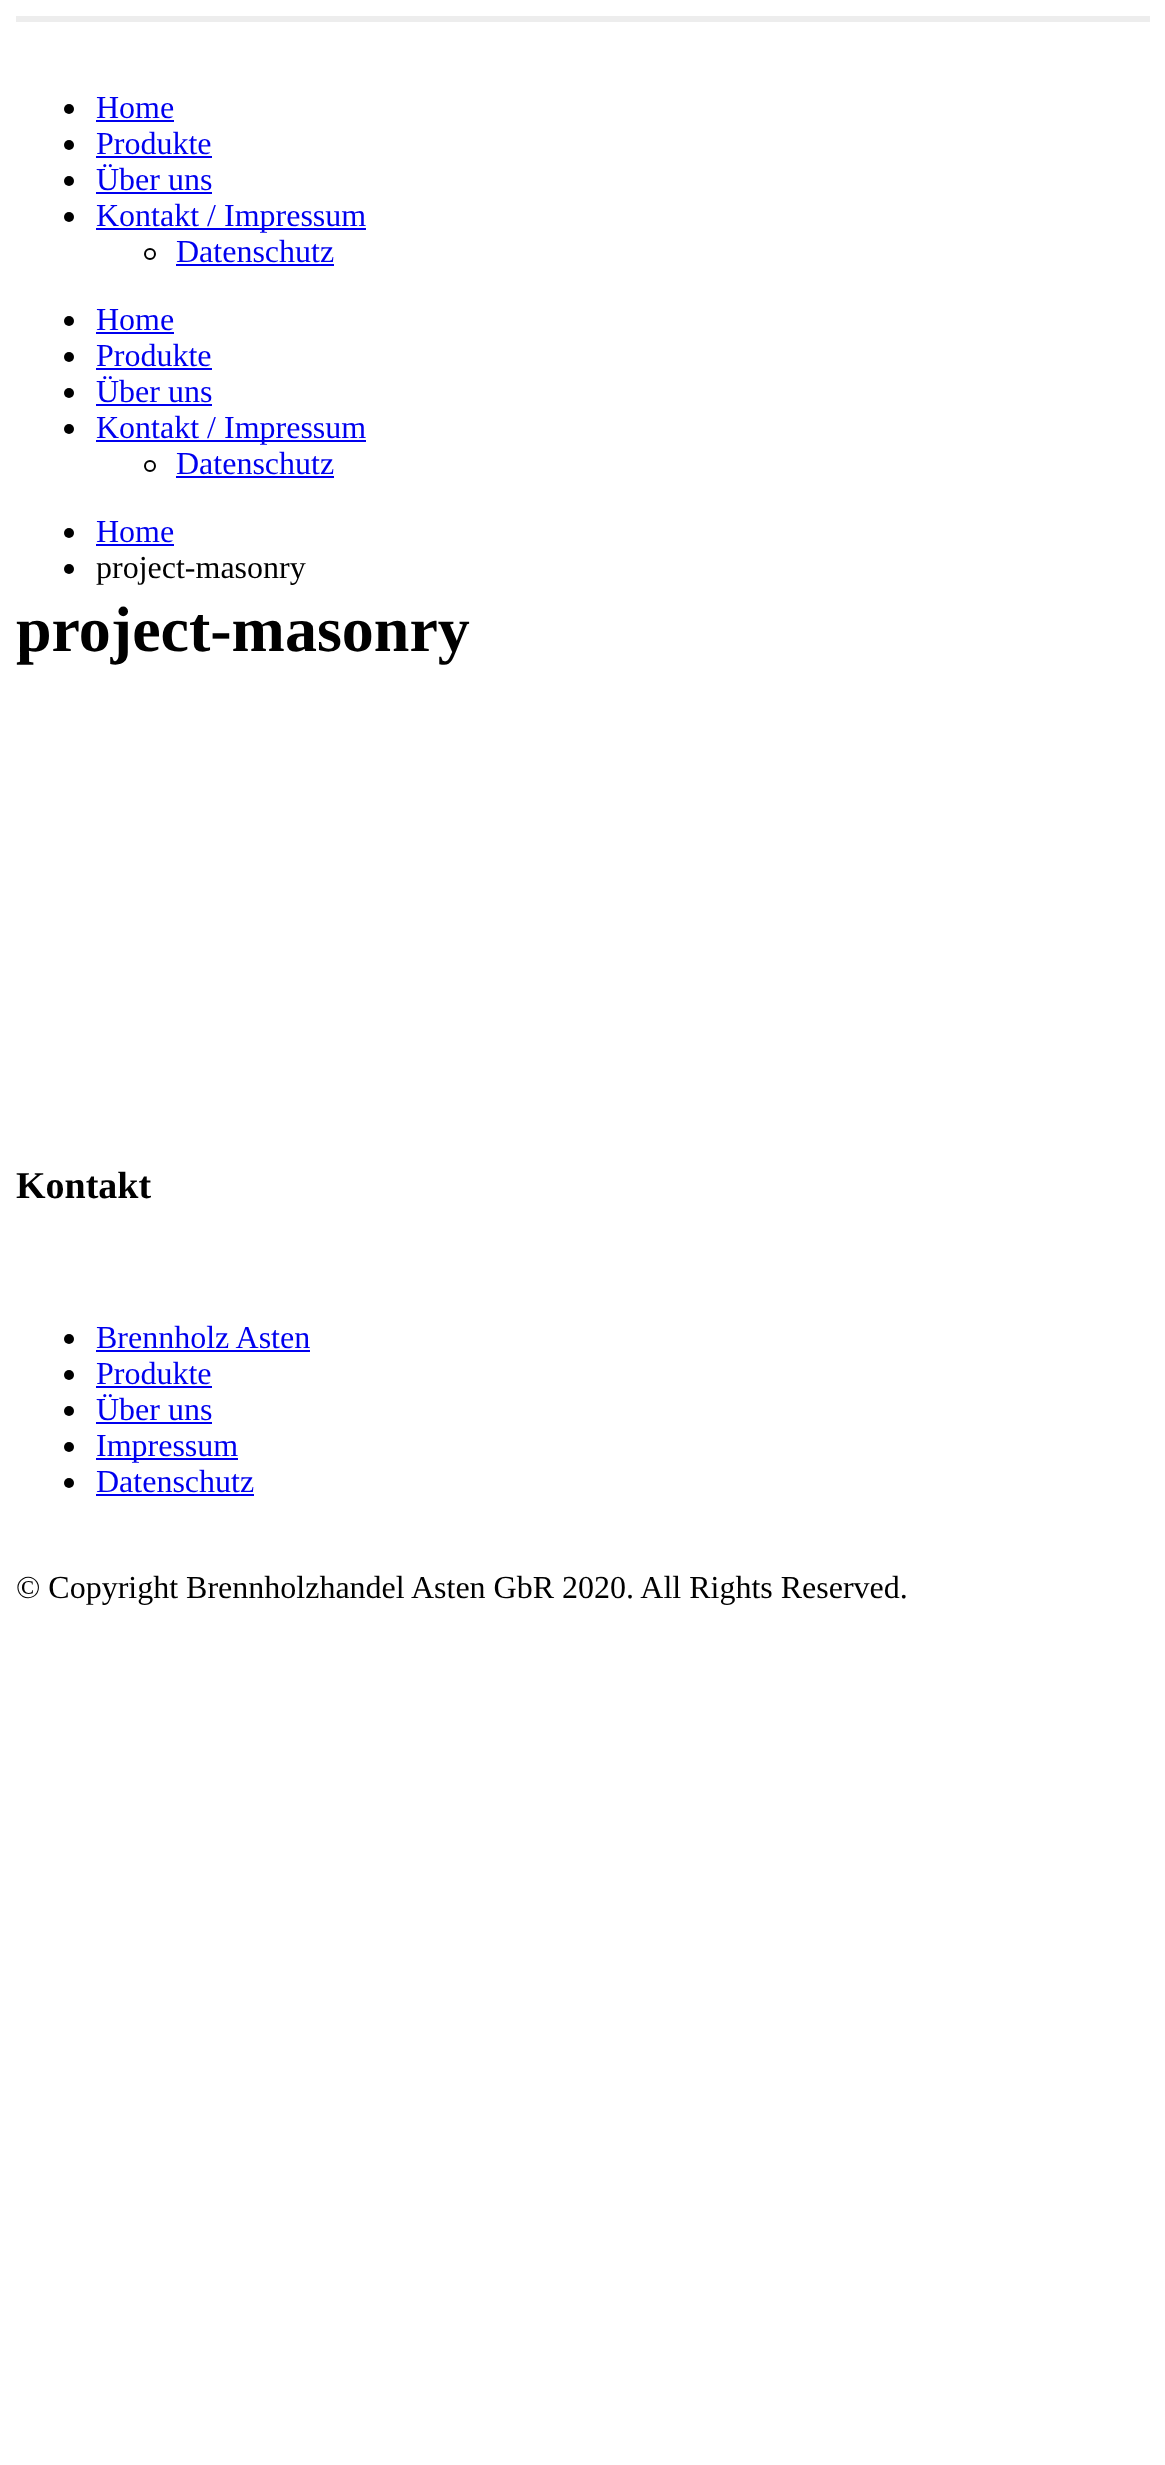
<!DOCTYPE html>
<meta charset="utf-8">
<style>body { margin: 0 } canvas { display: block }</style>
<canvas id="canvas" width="1165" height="2465"></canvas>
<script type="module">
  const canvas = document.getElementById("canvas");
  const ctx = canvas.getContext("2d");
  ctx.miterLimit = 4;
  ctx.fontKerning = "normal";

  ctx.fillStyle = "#ffffff";
  ctx.fillRect(0, 0, 1165, 2465);
  ctx.fillStyle = "#ededed";
  ctx.fillRect(16, 16, 1134, 6);
  ctx.fillStyle = "#000000";
  ctx.beginPath();
  ctx.arc(69, 109, 5, 0, Math.PI * 2);
  ctx.fill();
  ctx.font = "32px Liberation Serif";
  ctx.fillStyle = "#0000ee";
  ctx.fillText("Home", 96, 118);
  ctx.fillRect(96, 120, 78, 2);
  ctx.fillStyle = "#000000";
  ctx.beginPath();
  ctx.arc(69, 145, 5, 0, Math.PI * 2);
  ctx.fill();
  ctx.fillStyle = "#0000ee";
  ctx.fillText("Produkte", 96, 154);
  ctx.fillRect(96, 156, 116, 2);
  ctx.fillStyle = "#000000";
  ctx.beginPath();
  ctx.arc(69, 181, 5, 0, Math.PI * 2);
  ctx.fill();
  ctx.fillStyle = "#0000ee";
  ctx.fillText("Über uns", 96, 190);
  ctx.fillRect(96, 192, 116, 2);
  ctx.fillStyle = "#000000";
  ctx.beginPath();
  ctx.arc(69, 217, 5, 0, Math.PI * 2);
  ctx.fill();
  ctx.fillStyle = "#0000ee";
  ctx.fillRect(96, 228, 270, 2);
  ctx.fillText("Kontakt / Impressum", 96, 226);
  ctx.beginPath();
  ctx.arc(150, 254, 5, 0, Math.PI * 2);
  ctx.strokeStyle = "#000000";
  ctx.lineWidth = 2;
  ctx.stroke();
  ctx.fillText("Datenschutz", 176, 262);
  ctx.fillRect(176, 264, 158, 2);
  ctx.fillStyle = "#000000";
  ctx.beginPath();
  ctx.arc(69, 321, 5, 0, Math.PI * 2);
  ctx.fill();
  ctx.fillStyle = "#0000ee";
  ctx.fillText("Home", 96, 330);
  ctx.fillRect(96, 332, 78, 2);
  ctx.fillStyle = "#000000";
  ctx.beginPath();
  ctx.arc(69, 357, 5, 0, Math.PI * 2);
  ctx.fill();
  ctx.fillStyle = "#0000ee";
  ctx.fillText("Produkte", 96, 366);
  ctx.fillRect(96, 368, 116, 2);
  ctx.fillStyle = "#000000";
  ctx.beginPath();
  ctx.arc(69, 393, 5, 0, Math.PI * 2);
  ctx.fill();
  ctx.fillStyle = "#0000ee";
  ctx.fillText("Über uns", 96, 402);
  ctx.fillRect(96, 404, 116, 2);
  ctx.fillStyle = "#000000";
  ctx.beginPath();
  ctx.arc(69, 429, 5, 0, Math.PI * 2);
  ctx.fill();
  ctx.fillStyle = "#0000ee";
  ctx.fillRect(96, 440, 270, 2);
  ctx.fillText("Kontakt / Impressum", 96, 438);
  ctx.beginPath();
  ctx.arc(150, 466, 5, 0, Math.PI * 2);
  ctx.stroke();
  ctx.fillText("Datenschutz", 176, 474);
  ctx.fillRect(176, 476, 158, 2);
  ctx.fillStyle = "#000000";
  ctx.beginPath();
  ctx.arc(69, 533, 5, 0, Math.PI * 2);
  ctx.fill();
  ctx.fillStyle = "#0000ee";
  ctx.fillText("Home", 96, 542);
  ctx.fillRect(96, 544, 78, 2);
  ctx.fillStyle = "#000000";
  ctx.beginPath();
  ctx.arc(69, 569, 5, 0, Math.PI * 2);
  ctx.fill();
  ctx.fillText("project-masonry", 96, 578);
  ctx.font = "bold 64px Liberation Serif";
  ctx.fillText("project-masonry", 16, 651);
  ctx.font = "bold 38px Liberation Serif";
  ctx.fillText("Kontakt", 16, 1198);
  ctx.beginPath();
  ctx.arc(69, 1339, 5, 0, Math.PI * 2);
  ctx.fill();
  ctx.font = "32px Liberation Serif";
  ctx.fillStyle = "#0000ee";
  ctx.fillText("Brennholz Asten", 96, 1348);
  ctx.fillRect(96, 1350, 214, 2);
  ctx.fillStyle = "#000000";
  ctx.beginPath();
  ctx.arc(69, 1375, 5, 0, Math.PI * 2);
  ctx.fill();
  ctx.fillStyle = "#0000ee";
  ctx.fillText("Produkte", 96, 1384);
  ctx.fillRect(96, 1386, 116, 2);
  ctx.fillStyle = "#000000";
  ctx.beginPath();
  ctx.arc(69, 1411, 5, 0, Math.PI * 2);
  ctx.fill();
  ctx.fillStyle = "#0000ee";
  ctx.fillText("Über uns", 96, 1420);
  ctx.fillRect(96, 1422, 116, 2);
  ctx.fillStyle = "#000000";
  ctx.beginPath();
  ctx.arc(69, 1447, 5, 0, Math.PI * 2);
  ctx.fill();
  ctx.fillStyle = "#0000ee";
  ctx.fillRect(96, 1458, 142, 2);
  ctx.fillText("Impressum", 96, 1456);
  ctx.fillStyle = "#000000";
  ctx.beginPath();
  ctx.arc(69, 1483, 5, 0, Math.PI * 2);
  ctx.fill();
  ctx.fillStyle = "#0000ee";
  ctx.fillText("Datenschutz", 96, 1492);
  ctx.fillRect(96, 1494, 158, 2);
  ctx.fillStyle = "#000000";
  ctx.fillText("© Copyright Brennholzhandel Asten GbR 2020. All Rights Reserved.", 16, 1598);
</script>
